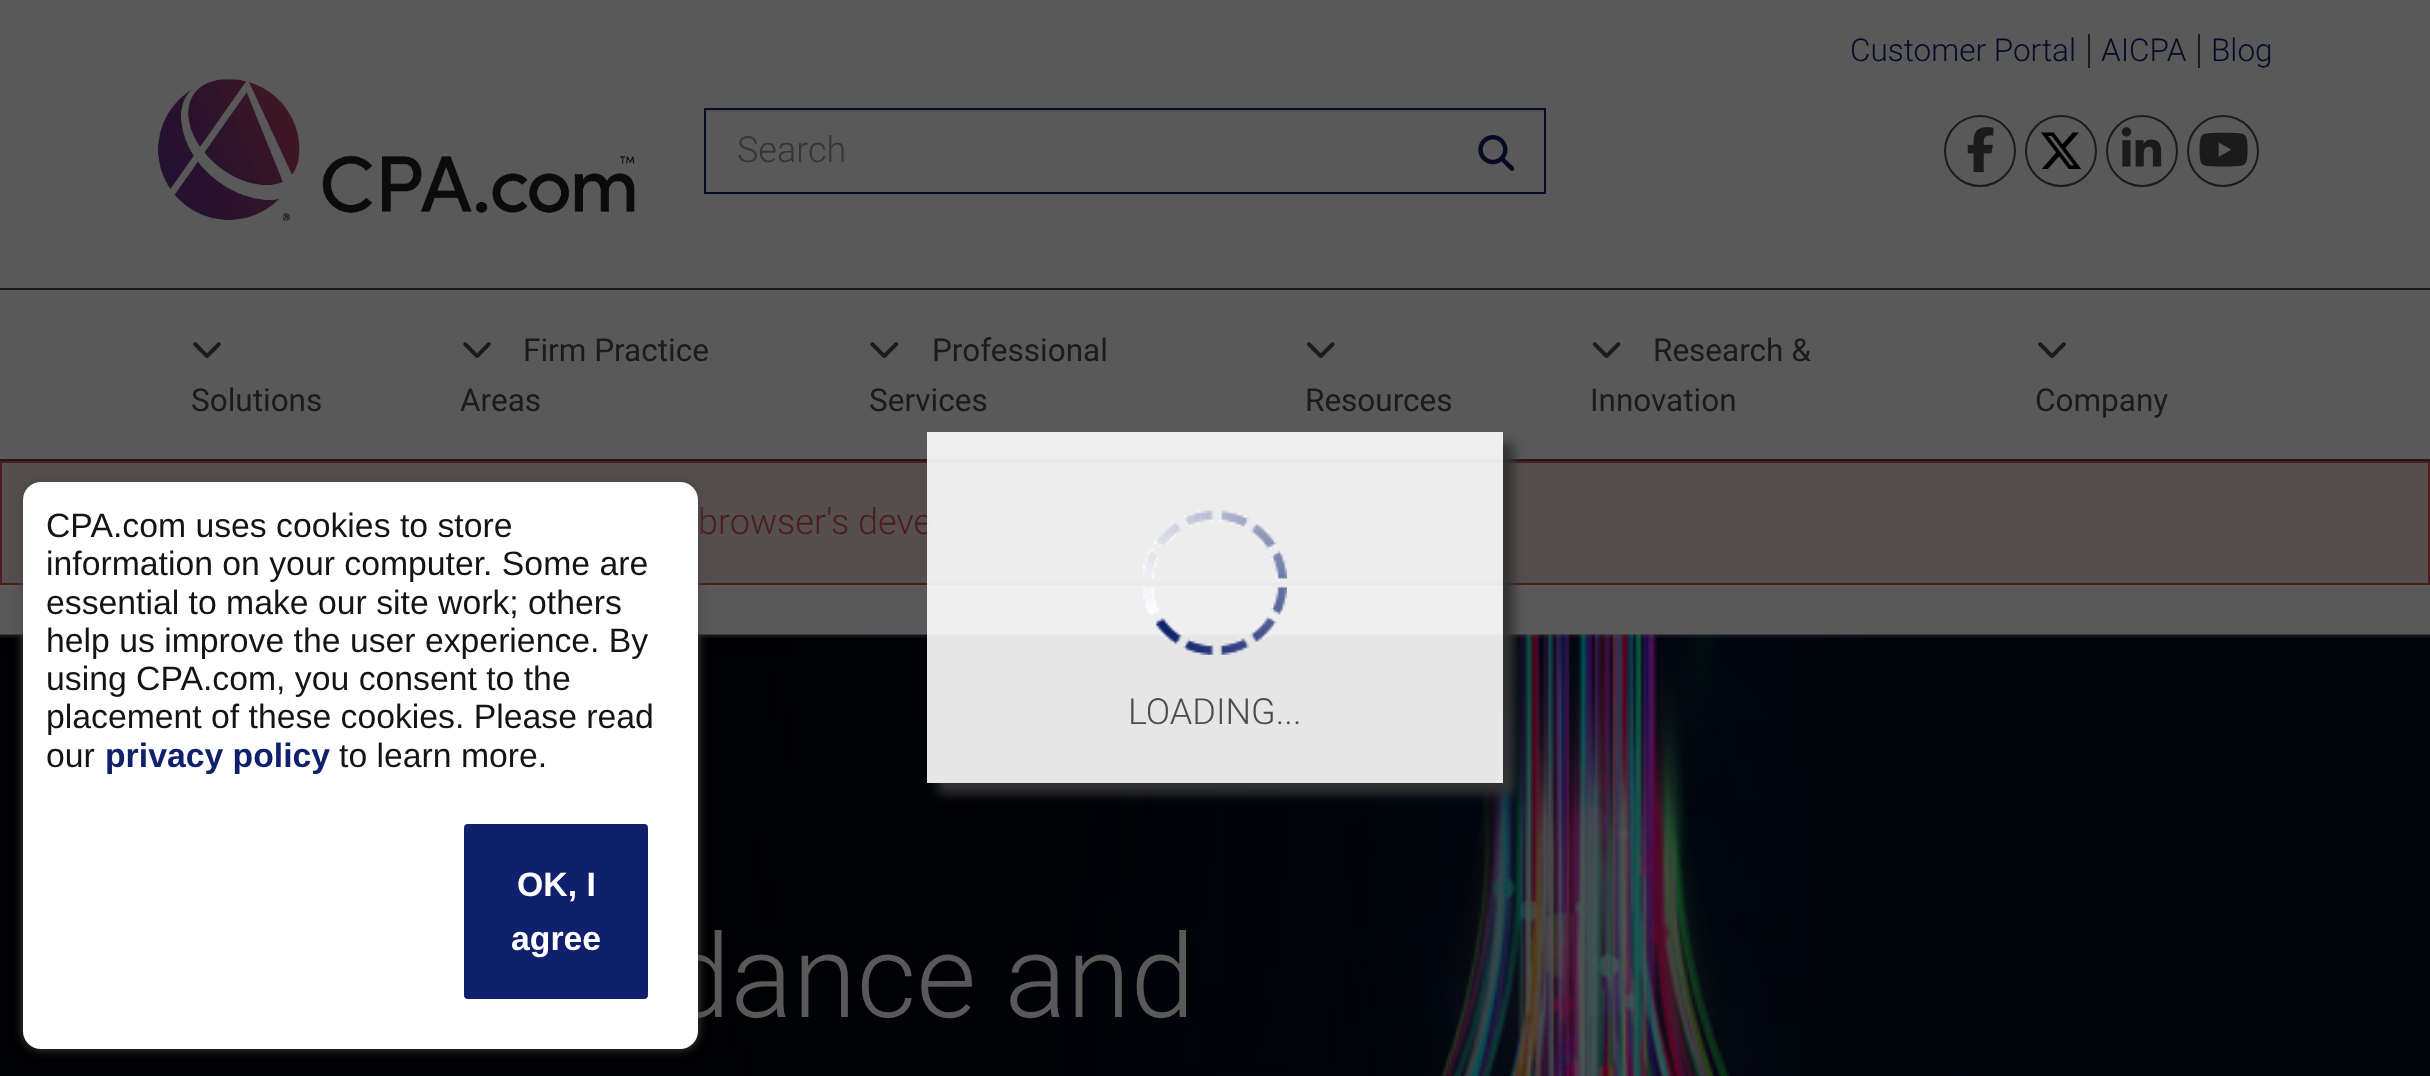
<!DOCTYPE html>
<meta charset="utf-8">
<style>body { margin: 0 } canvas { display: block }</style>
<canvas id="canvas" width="2430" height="1076"></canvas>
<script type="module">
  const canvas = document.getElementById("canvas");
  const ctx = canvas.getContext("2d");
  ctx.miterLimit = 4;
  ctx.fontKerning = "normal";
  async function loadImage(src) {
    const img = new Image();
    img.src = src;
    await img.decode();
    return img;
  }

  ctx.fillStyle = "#595959";
  ctx.fillRect(0, 0, 2430, 1076);
  ctx.fillStyle = "#1b1b1b";
  ctx.fillRect(0, 288, 2430, 2);
  ctx.font = "300 31.5px Roboto";
  ctx.fillStyle = "#050b26";
  ctx.fillText("Customer Portal", 1850, 61);
  ctx.fillStyle = "#1b1b1b";
  ctx.fillRect(2088, 34, 2, 34);
  ctx.fillStyle = "#050b26";
  ctx.fillText("AICPA", 2101, 61);
  ctx.fillStyle = "#1b1b1b";
  ctx.fillRect(2198, 34, 2, 34);
  ctx.fillStyle = "#050b26";
  ctx.fillText("Blog", 2211, 61);
  ctx.drawImage(await loadImage("img1.png"), 157, 78, 478, 143);
  ctx.fillStyle = "#535353";
  ctx.fillRect(707, 110, 837, 2);
  ctx.strokeStyle = "#050b26";
  ctx.lineWidth = 2;
  ctx.strokeRect(705, 109, 840, 84);
  ctx.font = "300 36px Roboto";
  ctx.fillStyle = "#363636";
  ctx.fillText("Search", 737, 162);
  ctx.drawImage(await loadImage("img2.png"), 1478, 135, 37, 36);
  ctx.beginPath();
  ctx.arc(1980, 151, 35, 0, Math.PI * 2);
  ctx.strokeStyle = "#1b1b1b";
  ctx.stroke();
  ctx.drawImage(await loadImage("img3.png"), 1967, 127, 27, 46);
  ctx.beginPath();
  ctx.arc(2061, 151, 35, 0, Math.PI * 2);
  ctx.stroke();
  ctx.drawImage(await loadImage("img4.png"), 2041, 132, 41, 37);
  ctx.beginPath();
  ctx.arc(2142, 151, 35, 0, Math.PI * 2);
  ctx.stroke();
  ctx.drawImage(await loadImage("img5.png"), 2121, 127, 41, 40);
  ctx.beginPath();
  ctx.arc(2223, 151, 35, 0, Math.PI * 2);
  ctx.stroke();
  ctx.drawImage(await loadImage("img6.png"), 2199, 132, 49, 35);
  ctx.fillStyle = "#1b1b1b";
  ctx.fillRect(0, 459, 2430, 2);
  ctx.drawImage(await loadImage("img7.png"), 193, 342, 28, 16);
  ctx.font = "31.5px Roboto";
  ctx.fillText("Solutions", 191, 411);
  ctx.drawImage(await loadImage("img7.png"), 463, 342, 28, 16);
  ctx.fillText("Firm Practice", 523, 361);
  ctx.fillText("Areas", 460, 411);
  ctx.drawImage(await loadImage("img8.png"), 870, 342, 28, 16);
  ctx.fillText("Professional", 932, 361);
  ctx.fillText("Services", 869, 411);
  ctx.drawImage(await loadImage("img9.png"), 1307, 342, 28, 16);
  ctx.fillText("Resources", 1305, 411);
  ctx.drawImage(await loadImage("img10.png"), 1592, 342, 29, 16);
  ctx.fillText("Research &", 1653, 361);
  ctx.fillText("Innovation", 1590, 411);
  ctx.drawImage(await loadImage("img7.png"), 2038, 342, 28, 16);
  ctx.fillText("Company", 2035, 411);
  ctx.fillStyle = "#554e4e";
  ctx.beginPath();
  ctx.rect(1, 462, 2428, 122);
  ctx.fill();
  ctx.strokeStyle = "#4c1d1c";
  ctx.stroke();
  ctx.font = "300 36px Roboto";
  ctx.fillStyle = "#4c1d1c";
  ctx.fillText("browser's deve", 698, 534);
  ctx.drawImage(await loadImage("img12.png"), 0, 634, 2430, 442);
  ctx.save();
  ctx.beginPath();
  ctx.moveTo(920, 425);
  ctx.lineTo(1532, 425);
  ctx.lineTo(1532, 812);
  ctx.lineTo(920, 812);
  ctx.closePath();
  ctx.moveTo(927, 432);
  ctx.lineTo(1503, 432);
  ctx.lineTo(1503, 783);
  ctx.lineTo(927, 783);
  ctx.closePath();
  ctx.clip("evenodd");
  ctx.fillStyle = "#333333";
  ctx.filter = "blur(5.5px)";
  ctx.beginPath();
  ctx.rect(938, 443, 576, 351);
  ctx.fill();
  ctx.filter = "none";
  ctx.restore();
  ctx.fillStyle = "rgba(255, 255, 255, 0.9)";
  ctx.fillRect(927, 432, 576, 351);
  ctx.drawImage(await loadImage("img11.png"), 1143, 510, 144, 145);
  ctx.fillStyle = "#4c4c4e";
  ctx.fillText("LOADING...", 1128, 724);
  ctx.font = "300 116px Roboto";
  ctx.fillStyle = "#595959";
  ctx.fillText("dance and", 666, 1017);
  ctx.fillStyle = "#444444";
  ctx.filter = "blur(5.5px)";
  ctx.beginPath();
  ctx.roundRect(23, 482, 675, 567, 18);
  ctx.fill();
  ctx.filter = "none";
  ctx.fillStyle = "#ffffff";
  ctx.beginPath();
  ctx.roundRect(23, 482, 675, 567, 18);
  ctx.fill();
  ctx.font = "33.75px Liberation Sans";
  ctx.fillStyle = "#141414";
  ctx.fillText("CPA.com uses cookies to store", 46, 537);
  ctx.fillText("information on your computer. Some are", 46, 575);
  ctx.fillText("essential to make our site work; others", 46, 614);
  ctx.fillText("help us improve the user experience. By", 46, 652);
  ctx.fillText("using CPA.com, you consent to the", 46, 690);
  ctx.fillText("placement of these cookies. Please read", 46, 728);
  ctx.fillText("our", 46, 767);
  ctx.font = "bold 33.75px Liberation Sans";
  ctx.fillStyle = "#0f206c";
  ctx.fillText("privacy policy", 105, 767);
  ctx.font = "33.75px Liberation Sans";
  ctx.fillStyle = "#141414";
  ctx.fillText("to learn more.", 339, 767);
  ctx.fillStyle = "#0f206c";
  ctx.beginPath();
  ctx.roundRect(461.5, 821.5, 189, 180, 6.5);
  ctx.fill();
  ctx.strokeStyle = "#ffffff";
  ctx.lineWidth = 5;
  ctx.stroke();
  ctx.font = "bold 33.75px Liberation Sans";
  ctx.fillStyle = "#ffffff";
  ctx.fillText("OK, I", 517, 896);
  ctx.fillText("agree", 511, 950);
</script>
